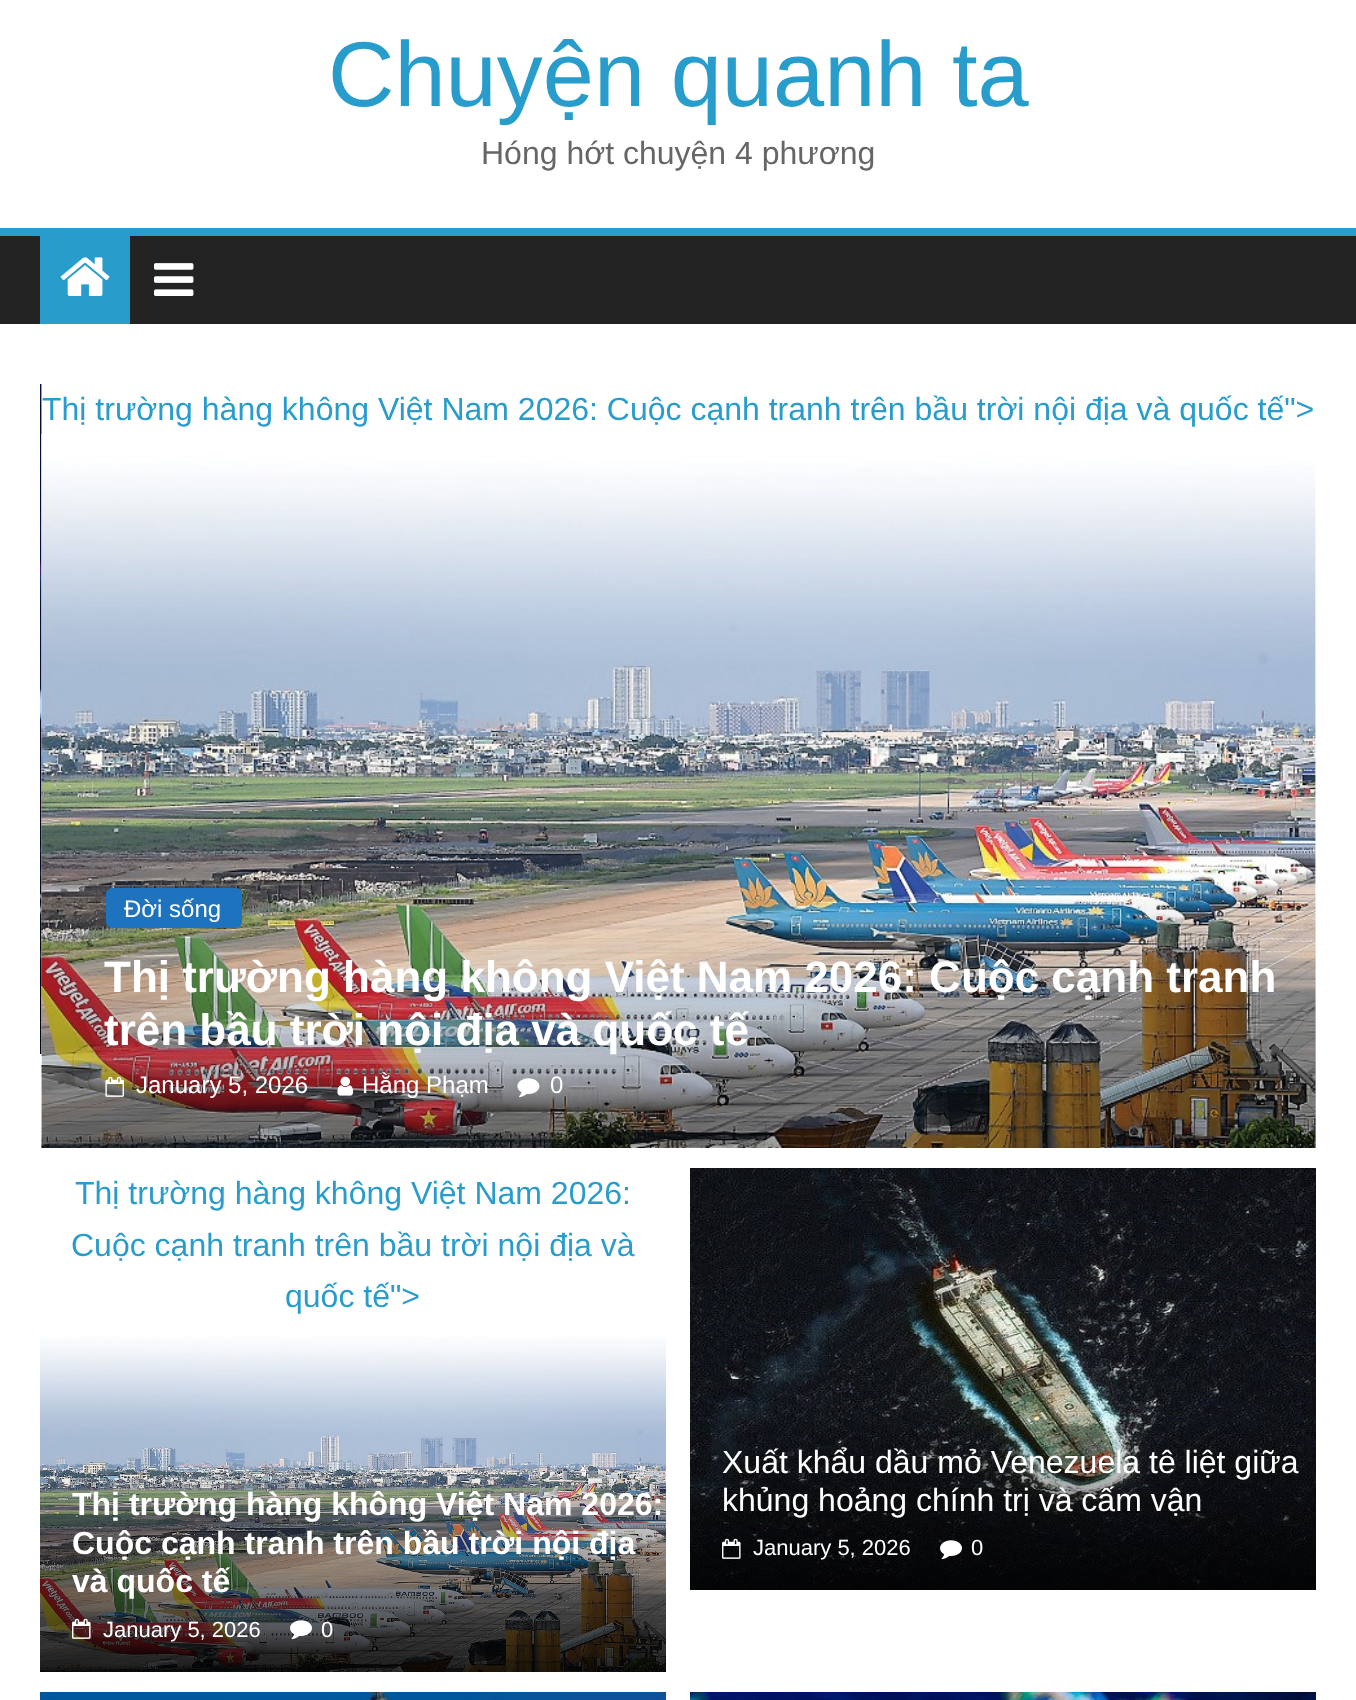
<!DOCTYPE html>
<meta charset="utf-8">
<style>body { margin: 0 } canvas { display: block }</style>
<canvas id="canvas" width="1356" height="1700"></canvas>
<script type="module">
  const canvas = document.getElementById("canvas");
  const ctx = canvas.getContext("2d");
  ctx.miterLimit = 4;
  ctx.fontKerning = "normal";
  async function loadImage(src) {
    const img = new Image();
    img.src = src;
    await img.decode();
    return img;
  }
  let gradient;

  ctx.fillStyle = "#ffffff";
  ctx.fillRect(0, 0, 1356, 1700);
  ctx.font = "92px Liberation Sans";
  ctx.fillStyle = "#289dcc";
  ctx.fillText("Chuyện quanh ta", 328, 106);
  ctx.font = "32px Liberation Sans";
  ctx.fillStyle = "#666666";
  ctx.fillText("Hóng hớt chuyện 4 phương", 481, 164);
  ctx.fillStyle = "#232323";
  ctx.fillRect(0, 236, 1356, 88);
  ctx.fillStyle = "#289dcc";
  ctx.fillRect(0, 228, 1356, 8);
  ctx.fillRect(40, 236, 90, 88);
  ctx.drawImage(await loadImage("img1.png"), 60, 257, 50, 39);
  ctx.drawImage(await loadImage("img2.png"), 154, 263, 40, 33);
  ctx.drawImage(await loadImage("img3.png"), 40, 384, 2, 670);
  gradient = ctx.createLinearGradient(-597, 786, -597, 1054);
  gradient.addColorStop(0, "rgba(0, 0, 0, 0)");
  gradient.addColorStop(1, "rgba(0, 0, 0, 0.3)");
  ctx.fillStyle = gradient;
  ctx.fillRect(40, 805, 2, 249);
  ctx.fillStyle = "#289dcc";
  ctx.fillText("Thị trường hàng không Việt Nam 2026: Cuộc cạnh tranh trên bầu trời nội địa và quốc tế\">", 42, 420);
  ctx.drawImage(await loadImage("img4.png"), 41, 434, 1275, 714);
  gradient = ctx.createLinearGradient(678, 880, 678, 1148);
  gradient.addColorStop(0, "rgba(0, 0, 0, 0)");
  gradient.addColorStop(1, "rgba(0, 0, 0, 0.3)");
  ctx.fillStyle = gradient;
  ctx.fillRect(42, 899, 1274, 249);
  ctx.fillStyle = "#1e73be";
  ctx.beginPath();
  ctx.roundRect(106, 888, 136, 40, 6);
  ctx.fill();
  ctx.font = "24px Liberation Sans";
  ctx.fillStyle = "#ffffff";
  ctx.fillText("Đời sống", 124, 917);
  ctx.font = "bold 44px Liberation Sans";
  ctx.fillText("Thị trường hàng không Việt Nam 2026: Cuộc cạnh tranh", 104, 992);
  ctx.fillText("trên bầu trời nội địa và quốc tế", 104, 1045);
  ctx.drawImage(await loadImage("img5.png"), 105, 1076, 19, 21);
  ctx.font = "24px Liberation Sans";
  ctx.fillText("January 5, 2026", 136, 1093);
  ctx.drawImage(await loadImage("img6.png"), 337, 1076, 17, 20);
  ctx.fillText("Hằng Phạm", 362, 1093);
  ctx.drawImage(await loadImage("img7.png"), 517, 1078, 23, 20);
  ctx.fillText("0", 550, 1093);
  ctx.font = "32px Liberation Sans";
  ctx.fillStyle = "#289dcc";
  ctx.fillText("Thị trường hàng không Việt Nam 2026:", 75, 1204);
  ctx.fillText("Cuộc cạnh tranh trên bầu trời nội địa và", 71, 1256);
  ctx.fillText("quốc tế\">", 285, 1307);
  ctx.drawImage(await loadImage("img8.png"), 40, 1336, 626, 336);
  ctx.font = "bold 32px Liberation Sans";
  ctx.fillStyle = "#ffffff";
  ctx.fillText("Thị trường hàng không Việt Nam 2026:", 72, 1515);
  ctx.fillText("Cuộc cạnh tranh trên bầu trời nội địa", 72, 1554);
  ctx.fillText("và quốc tế", 72, 1592);
  ctx.drawImage(await loadImage("img9.png"), 72, 1618, 19, 21);
  ctx.font = "22px Liberation Sans";
  ctx.fillText("January 5, 2026", 103, 1637);
  ctx.drawImage(await loadImage("img10.png"), 290, 1620, 22, 20);
  ctx.fillText("0", 321, 1637);
  ctx.drawImage(await loadImage("img11.png"), 690, 1168, 626, 422);
  ctx.font = "32px Liberation Sans";
  ctx.fillText("Xuất khẩu dầu mỏ Venezuela tê liệt giữa", 722, 1473);
  ctx.fillText("khủng hoảng chính trị và cấm vận", 722, 1511);
  ctx.drawImage(await loadImage("img12.png"), 722, 1538, 19, 21);
  ctx.font = "22px Liberation Sans";
  ctx.fillText("January 5, 2026", 753, 1555);
  ctx.drawImage(await loadImage("img13.png"), 940, 1540, 22, 20);
  ctx.fillText("0", 971, 1555);
  ctx.drawImage(await loadImage("img14.png"), 40, 1692, 626, 8);
  ctx.drawImage(await loadImage("img15.png"), 690, 1692, 626, 8);
</script>
